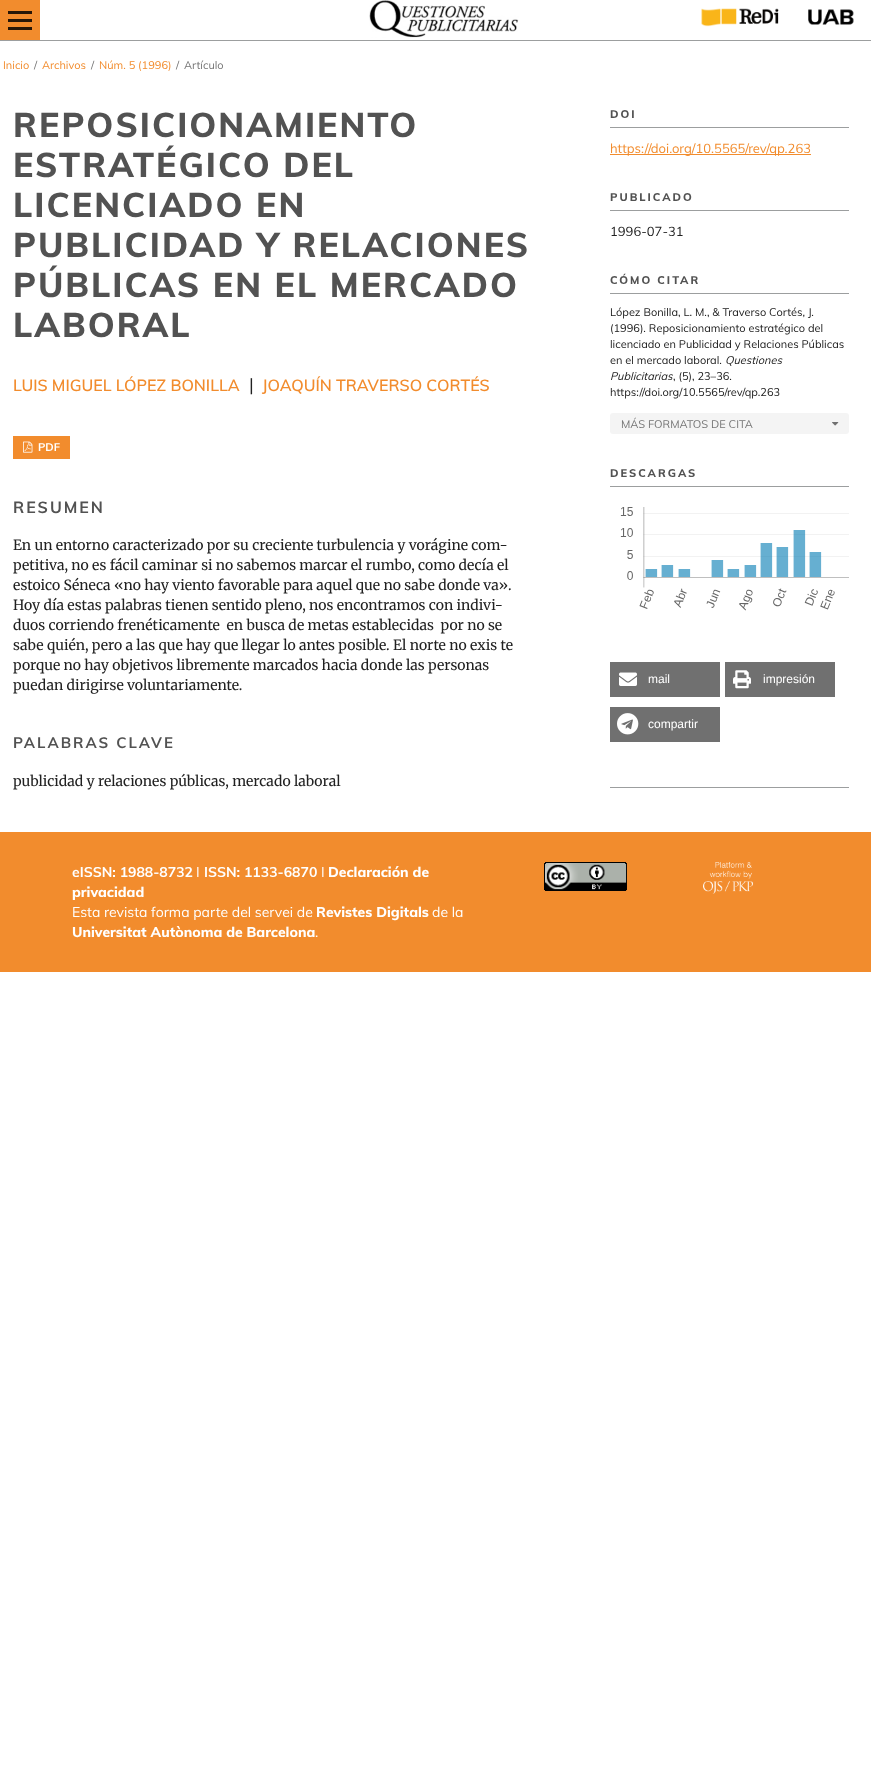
<!DOCTYPE html>
<meta charset="utf-8">
<style>body { margin: 0 } canvas { display: block }</style>
<canvas id="canvas" width="871" height="1767"></canvas>
<script type="module">
  const canvas = document.getElementById("canvas");
  const ctx = canvas.getContext("2d");
  ctx.miterLimit = 4;
  ctx.fontKerning = "normal";
  async function loadImage(src) {
    const img = new Image();
    img.src = src;
    await img.decode();
    return img;
  }

  ctx.fillStyle = "#ffffff";
  ctx.fillRect(0, 0, 871, 1767);
  ctx.fillStyle = "#9c9e9f";
  ctx.fillRect(0, 40, 871, 1);
  ctx.fillStyle = "#f28c2d";
  ctx.fillRect(0, 0, 40, 40);
  ctx.fillStyle = "#271607";
  ctx.fillRect(8, 27, 24, 3);
  ctx.fillRect(8, 11, 24, 3);
  ctx.fillRect(8, 19, 24, 3);
  ctx.drawImage(await loadImage("img1.png"), 369, 0, 150, 38);
  ctx.drawImage(await loadImage("img2.png"), 701, 8, 78, 19);
  ctx.drawImage(await loadImage("img3.png"), 808, 9, 46, 16);
  ctx.font = "11px Muli";
  ctx.fillStyle = "#f28c2d";
  ctx.fillText("Inicio", 3, 69);
  ctx.fillStyle = "#757575";
  ctx.fillText("/", 34, 69);
  ctx.fillStyle = "#f28c2d";
  ctx.fillText("Archivos", 42, 69);
  ctx.fillStyle = "#757575";
  ctx.fillText("/", 91, 69);
  ctx.fillStyle = "#f28c2d";
  ctx.fillText("Núm. 5 (1996)", 99, 69);
  ctx.fillStyle = "#757575";
  ctx.fillText("/", 176, 69);
  ctx.fillText("Artículo", 184, 69);
  ctx.letterSpacing = "2px";
  ctx.font = "800 34px Muli";
  ctx.fillStyle = "#525252";
  ctx.fillText("REPOSICIONAMIENTO", 13, 137);
  ctx.fillText("ESTRATÉGICO DEL", 13, 177);
  ctx.fillText("LICENCIADO EN", 13, 217);
  ctx.fillText("PUBLICIDAD Y RELACIONES", 13, 257);
  ctx.fillText("PÚBLICAS EN EL MERCADO", 13, 297);
  ctx.fillText("LABORAL", 13, 337);
  ctx.letterSpacing = "0px";
  ctx.font = "600 16px Muli";
  ctx.fillStyle = "#f28c2d";
  ctx.fillText("LUIS MIGUEL LÓPEZ BONILLA", 13, 391);
  ctx.font = "18px Muli";
  ctx.fillStyle = "#212121";
  ctx.fillText("|", 249, 391);
  ctx.font = "600 16px Muli";
  ctx.fillStyle = "#f28c2d";
  ctx.fillText("JOAQUÍN TRAVERSO CORTÉS", 262, 391);
  ctx.fillRect(13, 436, 57, 23);
  ctx.drawImage(await loadImage("img4.png"), 23, 441, 10, 12);
  ctx.font = "bold 11px Muli";
  ctx.fillStyle = "#ffffff";
  ctx.fillText("PDF", 38, 451);
  ctx.letterSpacing = "2px";
  ctx.font = "bold 16px Muli";
  ctx.fillStyle = "#525252";
  ctx.fillText("RESUMEN", 13, 513);
  ctx.letterSpacing = "0px";
  ctx.font = "14px Merriweather";
  ctx.fillStyle = "#212121";
  ctx.fillText("En un entorno caracterizado por su creciente turbulencia y vorágine com-", 13, 550);
  ctx.fillText("petitiva, no es fácil caminar si no sabemos marcar el rumbo, como decía el", 13, 570);
  ctx.fillText("estoico Séneca «no hay viento favorable para aquel que no sabe donde va».", 13, 590);
  ctx.fillText("Hoy día estas palabras tienen sentido pleno, nos encontramos con indivi-", 13, 610);
  ctx.fillText("duos corriendo frenéticamente  en busca de metas establecidas  por no se", 13, 630);
  ctx.fillText("sabe quién, pero a las que hay que llegar lo antes posible. El norte no exis te", 13, 650);
  ctx.fillText("porque no hay objetivos libremente marcados hacia donde las personas", 13, 670);
  ctx.fillText("puedan dirigirse voluntariamente.", 13, 690);
  ctx.letterSpacing = "2px";
  ctx.font = "bold 15px Muli";
  ctx.fillStyle = "#525252";
  ctx.fillText("PALABRAS CLAVE", 13, 748);
  ctx.letterSpacing = "0px";
  ctx.font = "14px Merriweather";
  ctx.fillStyle = "#212121";
  ctx.fillText("publicidad y relaciones públicas, mercado laboral", 13, 786);
  ctx.fillStyle = "#9c9e9f";
  ctx.fillRect(610, 127, 239, 1);
  ctx.letterSpacing = "2px";
  ctx.font = "800 11px Muli";
  ctx.fillStyle = "#525252";
  ctx.fillText("DOI", 610, 118);
  ctx.fillStyle = "#f28c2d";
  ctx.fillRect(610, 154, 201, 1);
  ctx.letterSpacing = "0px";
  ctx.font = "13px Muli";
  ctx.fillText("https://doi.org/10.5565/rev/qp.263", 610, 153);
  ctx.fillStyle = "#9c9e9f";
  ctx.fillRect(610, 210, 239, 1);
  ctx.letterSpacing = "2px";
  ctx.font = "800 11px Muli";
  ctx.fillStyle = "#525252";
  ctx.fillText("PUBLICADO", 610, 201);
  ctx.letterSpacing = "0px";
  ctx.font = "13px Muli";
  ctx.fillStyle = "#212121";
  ctx.fillText("1996-07-31", 610, 236);
  ctx.fillStyle = "#9c9e9f";
  ctx.fillRect(610, 293, 239, 1);
  ctx.letterSpacing = "2px";
  ctx.font = "800 11px Muli";
  ctx.fillStyle = "#525252";
  ctx.fillText("CÓMO CITAR", 610, 284);
  ctx.letterSpacing = "0px";
  ctx.font = "11px Muli";
  ctx.fillStyle = "#212121";
  ctx.fillText("López Bonilla, L. M., & Traverso Cortés, J.", 610, 316);
  ctx.fillText("(1996). Reposicionamiento estratégico del", 610, 332);
  ctx.fillText("licenciado en Publicidad y Relaciones Públicas", 610, 348);
  ctx.fillText("en el mercado laboral.", 610, 364);
  ctx.font = "italic 11px Muli";
  ctx.fillText("Questiones", 725, 364);
  ctx.fillText("Publicitarias", 610, 380);
  ctx.font = "11px Muli";
  ctx.fillText(", (5), 23–36.", 673, 380);
  ctx.fillText("https://doi.org/10.5565/rev/qp.263", 610, 396);
  ctx.fillStyle = "#f4f4f4";
  ctx.beginPath();
  ctx.roundRect(610, 413, 239, 21, 3);
  ctx.fill();
  ctx.fillStyle = "#757575";
  ctx.fillText("MÁS FORMATOS DE CITA", 621, 428);
  ctx.drawImage(await loadImage("img5.png"), 832, 422, 7, 4);
  ctx.fillStyle = "#9c9e9f";
  ctx.fillRect(610, 486, 239, 1);
  ctx.letterSpacing = "2px";
  ctx.font = "800 11px Muli";
  ctx.fillStyle = "#525252";
  ctx.fillText("DESCARGAS", 610, 477);
  ctx.drawImage(await loadImage("img6.png"), 620, 507, 229, 104);
  ctx.fillStyle = "#707070";
  ctx.fillRect(610, 662, 110, 35);
  ctx.drawImage(await loadImage("img7.png"), 619, 672, 18, 14);
  ctx.letterSpacing = "0px";
  ctx.font = "12px Liberation Sans";
  ctx.fillStyle = "#ffffff";
  ctx.fillText("mail", 648, 683);
  ctx.fillStyle = "#707070";
  ctx.fillRect(725, 662, 110, 35);
  ctx.drawImage(await loadImage("img8.png"), 733, 670, 18, 19);
  ctx.fillStyle = "#ffffff";
  ctx.fillText("impresión", 763, 683);
  ctx.fillStyle = "#707070";
  ctx.fillRect(610, 707, 110, 35);
  ctx.drawImage(await loadImage("img9.png"), 617, 713, 22, 22);
  ctx.fillStyle = "#ffffff";
  ctx.fillText("compartir", 648, 728);
  ctx.fillStyle = "#9c9e9f";
  ctx.fillRect(610, 787, 239, 1);
  ctx.fillStyle = "#f28c2d";
  ctx.fillRect(0, 832, 871, 140);
  ctx.font = "bold 14px Muli";
  ctx.fillStyle = "#ffffff";
  ctx.fillText("eISSN: 1988-8732", 72, 877);
  ctx.font = "14px Muli";
  ctx.fillText("I", 196, 877);
  ctx.font = "bold 14px Muli";
  ctx.fillText("ISSN: 1133-6870", 204, 877);
  ctx.font = "14px Muli";
  ctx.fillText("I", 321, 877);
  ctx.font = "800 14px Muli";
  ctx.fillText("Declaración de", 328, 877);
  ctx.fillText("privacidad", 72, 897);
  ctx.font = "14px Muli";
  ctx.fillText("Esta revista forma parte del servei de", 72, 917);
  ctx.font = "800 14px Muli";
  ctx.fillText("Revistes Digitals", 316, 917);
  ctx.font = "14px Muli";
  ctx.fillText("de la", 432, 917);
  ctx.font = "800 14px Muli";
  ctx.fillText("Universitat Autònoma de Barcelona", 72, 937);
  ctx.font = "14px Muli";
  ctx.fillText(".", 315, 937);
  ctx.drawImage(await loadImage("img10.png"), 544, 862, 83, 29);
  ctx.drawImage(await loadImage("img11.png"), 703, 862, 50, 32);
</script>
